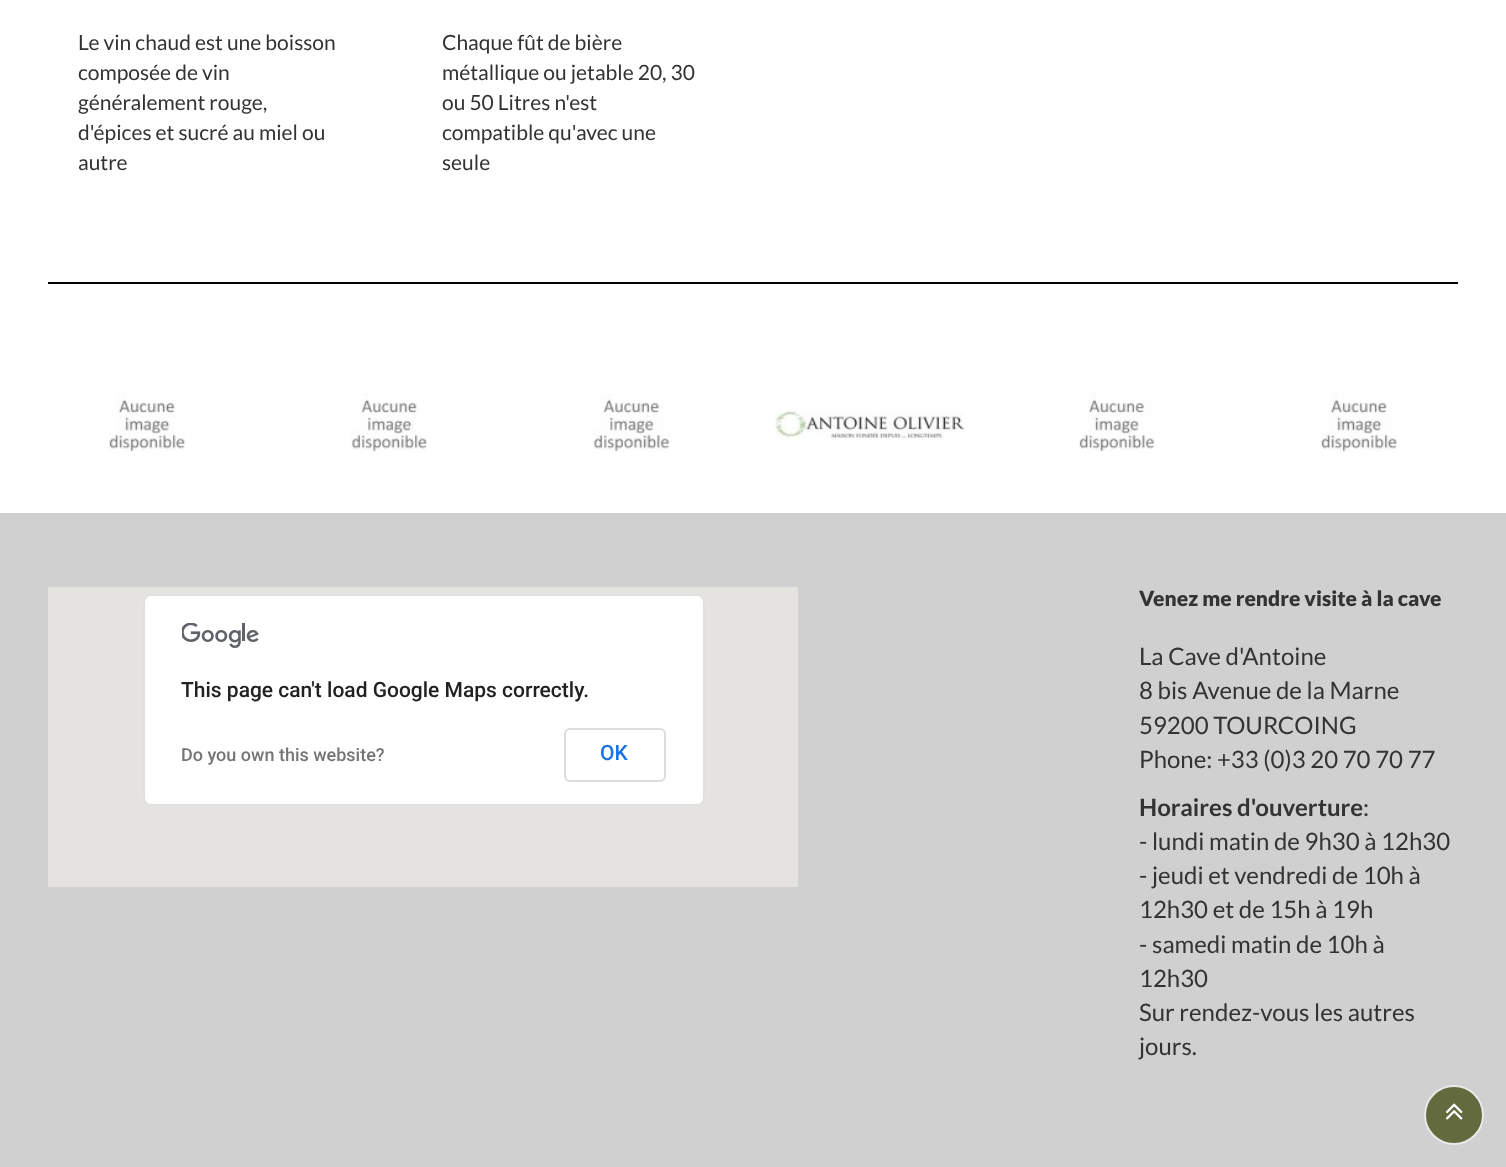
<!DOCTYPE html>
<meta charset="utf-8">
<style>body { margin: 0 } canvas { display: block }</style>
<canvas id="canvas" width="1506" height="1167"></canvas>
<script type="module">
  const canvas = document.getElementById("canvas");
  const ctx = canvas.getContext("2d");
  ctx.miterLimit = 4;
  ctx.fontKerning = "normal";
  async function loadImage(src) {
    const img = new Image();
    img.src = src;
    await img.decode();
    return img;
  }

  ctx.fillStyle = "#d0d0d0";
  ctx.fillRect(0, 0, 1506, 1167);
  ctx.fillStyle = "#ffffff";
  ctx.fillRect(0, 0, 1506, 513);
  ctx.fillStyle = "#000000";
  ctx.fillRect(48, 282, 1410, 2);
  ctx.font = "21px Lato";
  ctx.fillStyle = "#333333";
  ctx.fillText("Le vin chaud est une boisson", 78, 50);
  ctx.fillText("composée de vin", 78, 80);
  ctx.fillText("généralement rouge,", 78, 110);
  ctx.fillText("d'épices et sucré au miel ou", 78, 140);
  ctx.fillText("autre", 78, 170);
  ctx.fillText("Chaque fût de bière", 442, 50);
  ctx.fillText("métallique ou jetable 20, 30", 442, 80);
  ctx.fillText("ou 50 Litres n'est", 442, 110);
  ctx.fillText("compatible qu'avec une", 442, 140);
  ctx.fillText("seule", 442, 170);
  ctx.drawImage(await loadImage("img1.png"), 109, 392, 76, 60);
  ctx.drawImage(await loadImage("img2.png"), 350, 392, 77, 60);
  ctx.drawImage(await loadImage("img3.png"), 592, 394, 79, 58);
  ctx.drawImage(await loadImage("img4.png"), 775, 409, 191, 32);
  ctx.drawImage(await loadImage("img5.png"), 1079, 392, 77, 60);
  ctx.drawImage(await loadImage("img1.png"), 1321, 392, 76, 60);
  ctx.fillStyle = "#e5e3df";
  ctx.fillRect(48, 587, 750, 300);
  ctx.fillStyle = "#ffffff";
  ctx.beginPath();
  ctx.roundRect(143, 594, 562, 212, 8);
  ctx.fill();
  ctx.beginPath();
  ctx.roundRect(144, 595, 560, 210, 7);
  ctx.strokeStyle = "rgba(0, 0, 0, 0.12)";
  ctx.lineWidth = 2;
  ctx.stroke();
  ctx.drawImage(await loadImage("img6.png"), 182, 623, 77, 25);
  ctx.font = "500 21px Roboto";
  ctx.fillStyle = "#212121";
  ctx.fillText("This page can't load Google Maps correctly.", 181, 697);
  ctx.font = "500 18px Roboto";
  ctx.fillStyle = "#757575";
  ctx.fillText("Do you own this website?", 181, 761);
  ctx.beginPath();
  ctx.roundRect(565, 729, 100, 52, 5);
  ctx.strokeStyle = "#dadce0";
  ctx.stroke();
  ctx.font = "500 21px Roboto";
  ctx.fillStyle = "#1a73e8";
  ctx.fillText("OK", 600, 760);
  ctx.font = "900 21px Lato";
  ctx.fillStyle = "#333333";
  ctx.fillText("Venez me rendre visite à la cave", 1139, 606);
  ctx.font = "24px Lato";
  ctx.fillText("La Cave d'Antoine", 1139, 665);
  ctx.fillText("8 bis Avenue de la Marne", 1139, 699);
  ctx.fillText("59200 TOURCOING", 1139, 734);
  ctx.fillText("Phone: +33 (0)3 20 70 70 77", 1139, 768);
  ctx.font = "bold 24px Lato";
  ctx.fillText("Horaires d'ouverture", 1139, 816);
  ctx.font = "24px Lato";
  ctx.fillText(":", 1363, 816);
  ctx.fillText("- lundi matin de 9h30 à 12h30", 1139, 850);
  ctx.fillText("- jeudi et vendredi de 10h à", 1139, 884);
  ctx.fillText("12h30 et de 15h à 19h", 1139, 918);
  ctx.fillText("- samedi matin de 10h à", 1139, 953);
  ctx.fillText("12h30", 1139, 987);
  ctx.fillText("Sur rendez-vous les autres", 1139, 1021);
  ctx.fillText("jours.", 1139, 1055);
  ctx.fillStyle = "#636b3e";
  ctx.beginPath();
  ctx.arc(1454, 1115, 29, 0, Math.PI * 2);
  ctx.fill();
  ctx.strokeStyle = "#eae9ea";
  ctx.stroke();
  ctx.drawImage(await loadImage("img7.png"), 1445, 1103, 18, 17);
</script>
